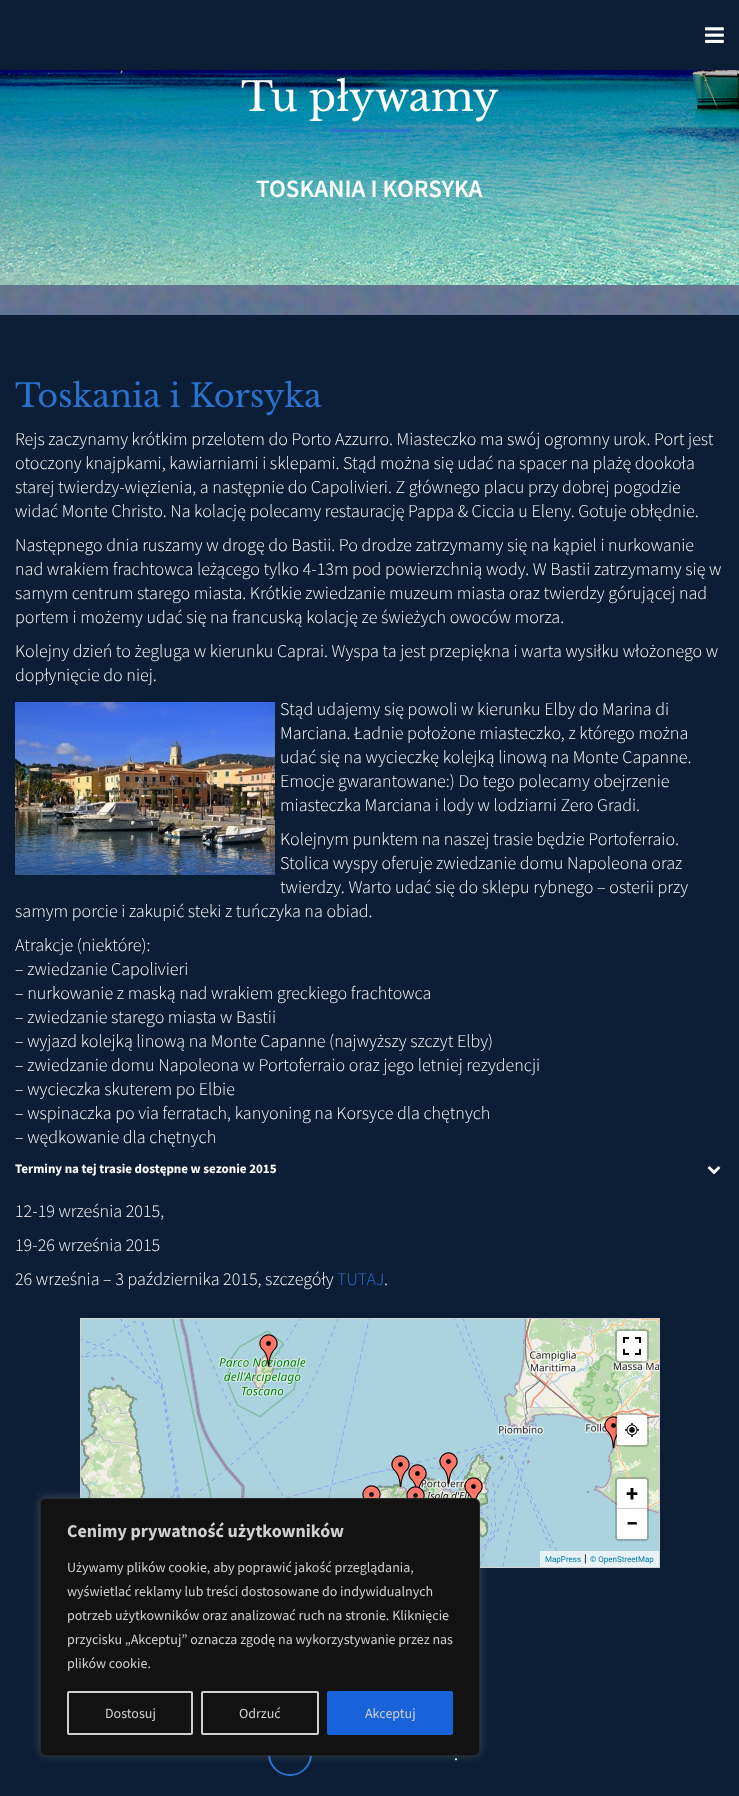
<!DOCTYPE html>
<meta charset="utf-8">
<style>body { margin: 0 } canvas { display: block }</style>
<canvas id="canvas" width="739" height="1796"></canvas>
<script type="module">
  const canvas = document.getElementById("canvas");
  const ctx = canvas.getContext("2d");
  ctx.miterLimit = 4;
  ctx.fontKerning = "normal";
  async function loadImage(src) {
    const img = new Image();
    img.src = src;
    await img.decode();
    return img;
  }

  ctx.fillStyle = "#0c1e35";
  ctx.fillRect(0, 0, 739, 1796);
  ctx.drawImage(await loadImage("img1.png"), 705, 27, 19, 16);
  ctx.drawImage(await loadImage("img2.png"), 0, 285, 739, 30);
  ctx.drawImage(await loadImage("img3.png"), 0, 70, 739, 215);
  ctx.font = "40px Libre Baskerville";
  ctx.fillStyle = "#fdfdfd";
  ctx.fillText("Tu pływamy", 241, 111);
  ctx.fillStyle = "#2972ce";
  ctx.fillRect(330, 129, 80, 3);
  ctx.font = "600 25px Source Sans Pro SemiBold";
  ctx.fillStyle = "#fdfdfd";
  ctx.fillText("TOSKANIA I KORSYKA", 256, 197);
  ctx.font = "32px Libre Baskerville";
  ctx.fillStyle = "#2972ce";
  ctx.fillText("Toskania i Korsyka", 15, 407);
  ctx.font = "300 18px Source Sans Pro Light";
  ctx.fillStyle = "#fdfdfd";
  ctx.fillText("Rejs zaczynamy krótkim przelotem do Porto Azzurro. Miasteczko ma swój ogromny urok. Port jest", 15, 445);
  ctx.fillText("otoczony knajpkami, kawiarniami i sklepami. Stąd można się udać na spacer na plażę dookoła", 15, 469);
  ctx.fillText("starej twierdzy-więzienia, a następnie do Capolivieri. Z głównego placu przy dobrej pogodzie", 15, 493);
  ctx.fillText("widać Monte Christo. Na kolację polecamy restaurację Pappa & Ciccia u Eleny. Gotuje obłędnie.", 15, 517);
  ctx.fillText("Następnego dnia ruszamy w drogę do Bastii. Po drodze zatrzymamy się na kąpiel i nurkowanie", 15, 551);
  ctx.fillText("nad wrakiem frachtowca leżącego tylko 4-13m pod powierzchnią wody. W Bastii zatrzymamy się w", 15, 575);
  ctx.fillText("samym centrum starego miasta. Krótkie zwiedzanie muzeum miasta oraz twierdzy górującej nad", 15, 599);
  ctx.fillText("portem i możemy udać się na francuską kolację ze świeżych owoców morza.", 15, 623);
  ctx.fillText("Kolejny dzień to żegluga w kierunku Caprai. Wyspa ta jest przepiękna i warta wysiłku włożonego w", 15, 657);
  ctx.fillText("dopłynięcie do niej.", 15, 681);
  ctx.drawImage(await loadImage("img4.png"), 15, 702, 260, 173);
  ctx.fillText("Stąd udajemy się powoli w kierunku Elby do Marina di", 280, 715);
  ctx.fillText("Marciana. Ładnie położone miasteczko, z którego można", 280, 739);
  ctx.fillText("udać się na wycieczkę kolejką linową na Monte Capanne.", 280, 763);
  ctx.fillText("Emocje gwarantowane:) Do tego polecamy obejrzenie", 280, 787);
  ctx.fillText("miasteczka Marciana i lody w lodziarni Zero Gradi.", 280, 811);
  ctx.fillText("Kolejnym punktem na naszej trasie będzie Portoferraio.", 280, 845);
  ctx.fillText("Stolica wyspy oferuje zwiedzanie domu Napoleona oraz", 280, 869);
  ctx.fillText("twierdzy. Warto udać się do sklepu rybnego – osterii przy", 280, 893);
  ctx.fillText("samym porcie i zakupić steki z tuńczyka na obiad.", 15, 917);
  ctx.fillText("Atrakcje (niektóre):", 15, 951);
  ctx.fillText("– zwiedzanie Capolivieri", 15, 975);
  ctx.fillText("– nurkowanie z maską nad wrakiem greckiego frachtowca", 15, 999);
  ctx.fillText("– zwiedzanie starego miasta w Bastii", 15, 1023);
  ctx.fillText("– wyjazd kolejką linową na Monte Capanne (najwyższy szczyt Elby)", 15, 1047);
  ctx.fillText("– zwiedzanie domu Napoleona w Portoferraio oraz jego letniej rezydencji", 15, 1071);
  ctx.fillText("– wycieczka skuterem po Elbie", 15, 1095);
  ctx.fillText("– wspinaczka po via ferratach, kanyoning na Korsyce dla chętnych", 15, 1119);
  ctx.fillText("– wędkowanie dla chętnych", 15, 1143);
  ctx.font = "bold 13px Source Sans Pro";
  ctx.fillText("Terminy na tej trasie dostępne w sezonie 2015", 15, 1173);
  ctx.drawImage(await loadImage("img5.png"), 707, 1166, 14, 9);
  ctx.font = "300 18px Source Sans Pro Light";
  ctx.fillText("12-19 września 2015,", 15, 1217);
  ctx.fillText("19-26 września 2015", 15, 1251);
  ctx.fillText("26 września – 3 października 2015, szczegóły", 15, 1285);
  ctx.fillStyle = "#2972ce";
  ctx.fillText("TUTAJ", 337, 1285);
  ctx.fillStyle = "#fdfdfd";
  ctx.fillText(".", 384, 1285);
  ctx.strokeStyle = "#d3d3d3";
  ctx.strokeRect(80.5, 1318.5, 579, 249);
  ctx.drawImage(await loadImage("img10.png"), 528, 1319, 131, 38);
  ctx.drawImage(await loadImage("img13.png"), 528, 1357, 131, 210);
  ctx.beginPath();
  ctx.roundRect(616, 1330, 32, 32, 3);
  ctx.strokeStyle = "rgba(0, 0, 0, 0.2)";
  ctx.lineWidth = 2;
  ctx.stroke();
  ctx.fillStyle = "#ffffff";
  ctx.beginPath();
  ctx.roundRect(617, 1331, 30, 30, 2);
  ctx.fill();
  ctx.drawImage(await loadImage("img6.png"), 623, 1337, 18, 18);
  ctx.drawImage(await loadImage("img15.png"), 604, 1416, 13, 32);
  ctx.beginPath();
  ctx.roundRect(616, 1414, 32, 32, 3);
  ctx.stroke();
  ctx.beginPath();
  ctx.roundRect(617, 1415, 30, 30, 2);
  ctx.fill();
  ctx.drawImage(await loadImage("img7.png"), 625, 1423, 14, 14);
  ctx.drawImage(await loadImage("img8.png"), 81, 1319, 191, 38);
  ctx.drawImage(await loadImage("img9.png"), 272, 1319, 256, 38);
  ctx.drawImage(await loadImage("img11.png"), 81, 1357, 191, 141);
  ctx.drawImage(await loadImage("img12.png"), 272, 1357, 256, 210);
  ctx.drawImage(await loadImage("img14.png"), 259, 1334, 19, 32);
  ctx.drawImage(await loadImage("img16.png"), 362, 1485, 19, 13);
  ctx.drawImage(await loadImage("img17.png"), 391, 1455, 19, 32);
  ctx.drawImage(await loadImage("img18.png"), 408, 1464, 19, 24);
  ctx.drawImage(await loadImage("img19.png"), 439, 1452, 19, 32);
  ctx.drawImage(await loadImage("img20.png"), 464, 1477, 19, 22);
  ctx.drawImage(await loadImage("img21.png"), 406, 1486, 19, 12);
  ctx.beginPath();
  ctx.roundRect(616, 1478, 32, 62, 3);
  ctx.stroke();
  ctx.beginPath();
  ctx.roundRect(617, 1479, 30, 30, [2, 2, 0, 0]);
  ctx.fill();
  ctx.fillStyle = "#cccccc";
  ctx.fillRect(617, 1508, 30, 1);
  ctx.font = "bold 22px Roboto";
  ctx.fillStyle = "#000000";
  ctx.fillText("+", 626, 1501);
  ctx.fillStyle = "#ffffff";
  ctx.beginPath();
  ctx.roundRect(617, 1509, 30, 30, [0, 0, 2, 2]);
  ctx.fill();
  ctx.fillStyle = "#000000";
  ctx.fillText("−", 626, 1531);
  ctx.fillStyle = "rgba(255, 255, 255, 0.7)";
  ctx.fillRect(540, 1551, 119, 16);
  ctx.font = "8px Roboto";
  ctx.fillStyle = "#0078a8";
  ctx.fillText("MapPress", 545, 1562);
  ctx.font = "11px Roboto";
  ctx.fillStyle = "#000000";
  ctx.fillText("|", 584, 1562);
  ctx.font = "8px Roboto";
  ctx.fillStyle = "#0078a8";
  ctx.fillText("© OpenStreetMap", 590, 1562);
  ctx.beginPath();
  ctx.arc(290, 1754, 21, 0, Math.PI * 2);
  ctx.strokeStyle = "#2972ce";
  ctx.stroke();
  ctx.fillStyle = "rgba(172, 171, 171, 0.3)";
  ctx.filter = "blur(5px)";
  ctx.beginPath();
  ctx.roundRect(40, 1497, 440, 258, 6);
  ctx.fill();
  ctx.filter = "none";
  ctx.fillStyle = "#121212";
  ctx.beginPath();
  ctx.roundRect(40.5, 1498.5, 439, 257, 5.5);
  ctx.fill();
  ctx.strokeStyle = "#2a2a2a";
  ctx.lineWidth = 1;
  ctx.stroke();
  ctx.font = "bold 18px Source Sans Pro";
  ctx.fillStyle = "#d0d0d0";
  ctx.fillText("Cenimy prywatność użytkowników", 67, 1537);
  ctx.font = "14px Source Sans Pro";
  ctx.fillText("Używamy plików cookie, aby poprawić jakość przeglądania,", 67, 1572);
  ctx.fillText("wyświetlać reklamy lub treści dostosowane do indywidualnych", 67, 1596);
  ctx.fillText("potrzeb użytkowników oraz analizować ruch na stronie. Kliknięcie", 67, 1620);
  ctx.fillText("przycisku „Akceptuj” oznacza zgodę na wykorzystywanie przez nas", 67, 1644);
  ctx.fillText("plików cookie.", 67, 1668);
  ctx.beginPath();
  ctx.roundRect(68, 1692, 124, 42, 1);
  ctx.strokeStyle = "#d0d0d0";
  ctx.lineWidth = 2;
  ctx.stroke();
  ctx.fillText("Dostosuj", 105, 1718);
  ctx.beginPath();
  ctx.roundRect(202, 1692, 116, 42, 1);
  ctx.stroke();
  ctx.fillText("Odrzuć", 239, 1718);
  ctx.fillStyle = "#1863dc";
  ctx.beginPath();
  ctx.roundRect(328, 1692, 124, 42, 1);
  ctx.fill();
  ctx.strokeStyle = "#1863dc";
  ctx.stroke();
  ctx.fillStyle = "#d0d0d0";
  ctx.fillText("Akceptuj", 365, 1718);
  ctx.font = "16px Source Sans Pro";
  ctx.fillStyle = "#fdfdfd";
  ctx.fillText(".", 454, 1760);
</script>
